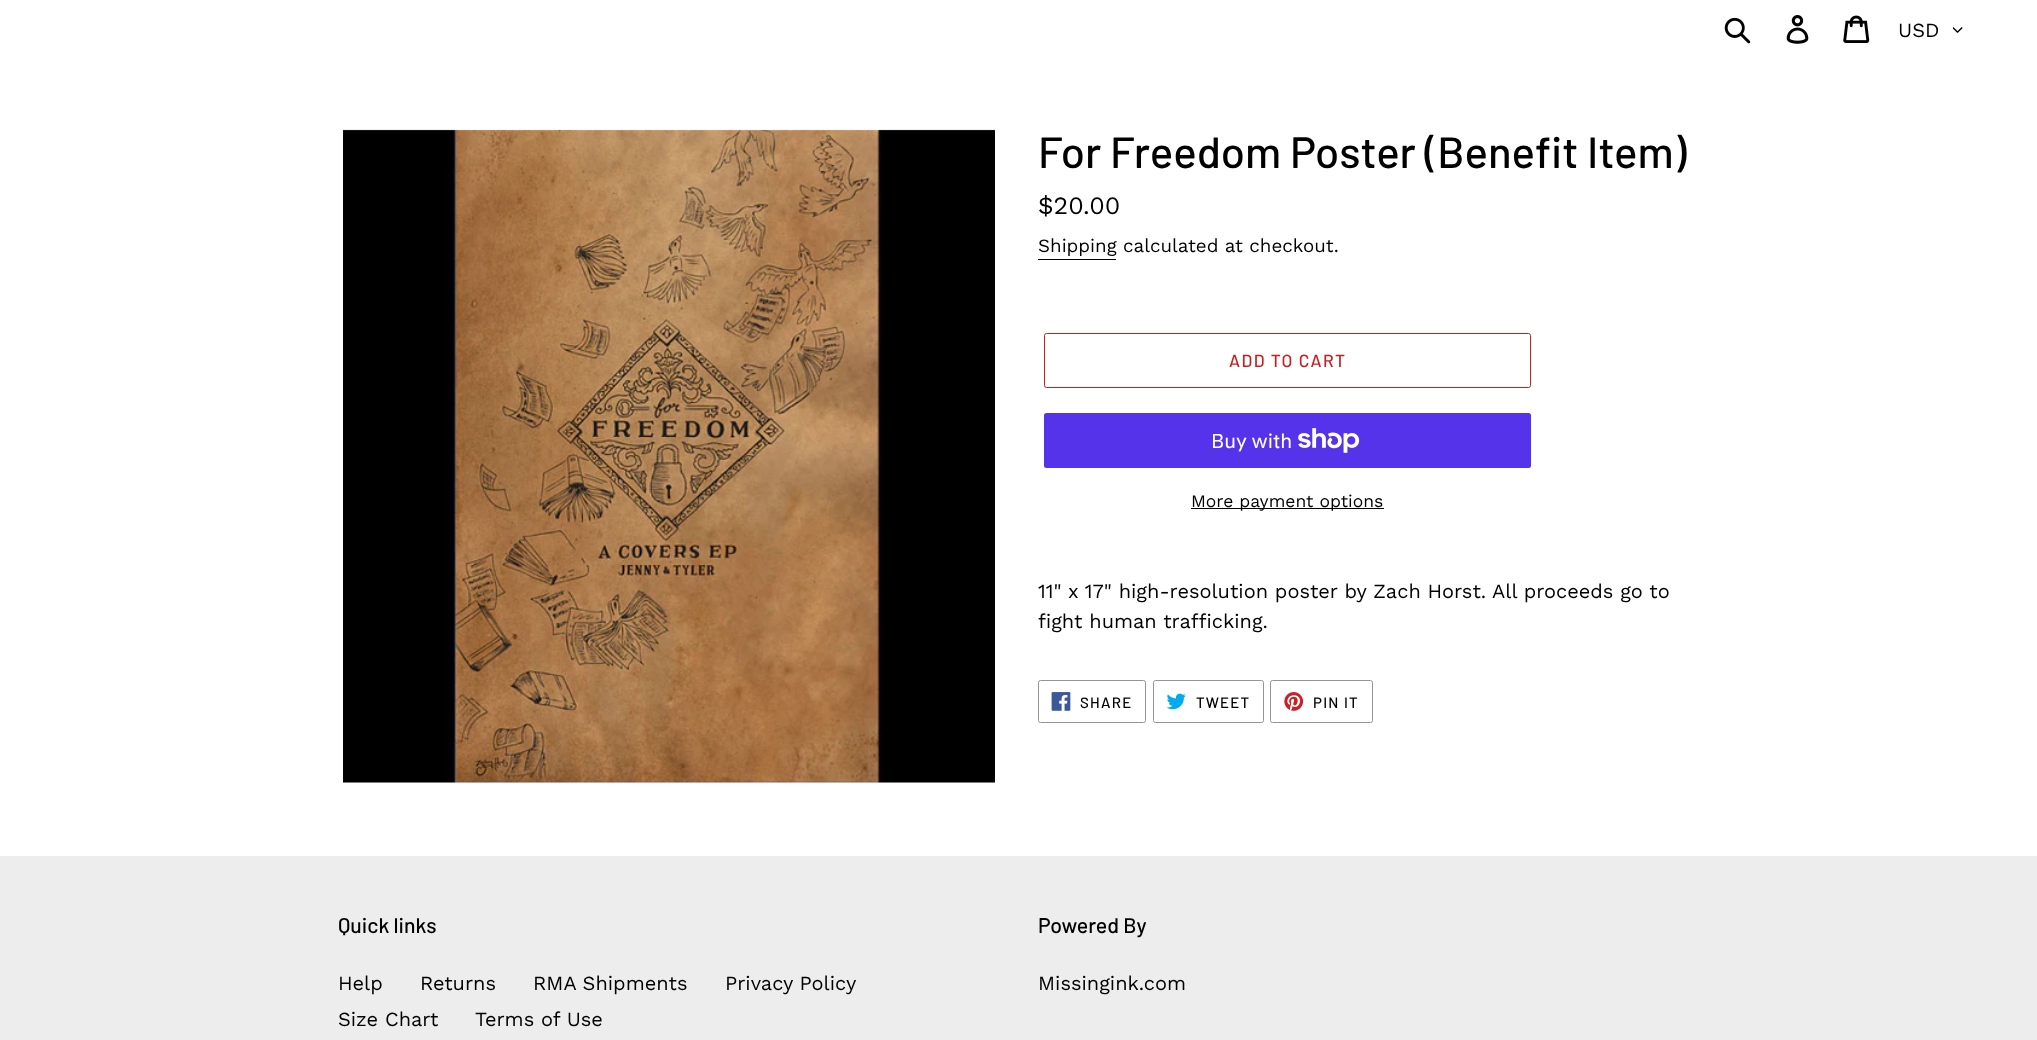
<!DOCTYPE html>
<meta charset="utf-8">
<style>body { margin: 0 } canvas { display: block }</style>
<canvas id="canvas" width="2037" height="1040"></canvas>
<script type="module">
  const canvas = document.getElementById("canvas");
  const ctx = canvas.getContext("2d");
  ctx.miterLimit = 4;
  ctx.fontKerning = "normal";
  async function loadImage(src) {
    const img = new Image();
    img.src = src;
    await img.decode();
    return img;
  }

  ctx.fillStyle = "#ffffff";
  ctx.fillRect(0, 0, 2037, 1040);
  ctx.drawImage(await loadImage("img1.png"), 1724, 17, 27, 27);
  ctx.drawImage(await loadImage("img2.png"), 1786, 15, 23, 29);
  ctx.drawImage(await loadImage("img3.png"), 1843, 15, 27, 28);
  ctx.font = "20px Work Sans";
  ctx.fillStyle = "#000000";
  ctx.fillText("USD", 1898, 37);
  ctx.drawImage(await loadImage("img4.png"), 1953, 27, 10, 6);
  ctx.drawImage(await loadImage("img5.png"), 343, 129, 652, 654);
  ctx.font = "500 43.75px Barlow";
  ctx.fillText("For Freedom Poster (Benefit Item)", 1038, 168);
  ctx.font = "25px Work Sans";
  ctx.fillText("$20.00", 1038, 214);
  ctx.font = "18.75px Work Sans";
  ctx.fillText("Shipping calculated at checkout.", 1038, 252);
  ctx.fillRect(1038, 259, 78, 1);
  ctx.beginPath();
  ctx.roundRect(1044.5, 333.5, 486, 54, 2);
  ctx.strokeStyle = "#c71e1f";
  ctx.stroke();
  ctx.letterSpacing = "1.4px";
  ctx.font = "500 17.5px Barlow";
  ctx.fillStyle = "#c71e1f";
  ctx.fillText("ADD TO CART", 1229, 367);
  ctx.fillStyle = "#5433eb";
  ctx.beginPath();
  ctx.roundRect(1044, 413, 487, 55, 2.5);
  ctx.fill();
  ctx.letterSpacing = "0px";
  ctx.font = "20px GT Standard";
  ctx.fillStyle = "#ffffff";
  ctx.fillText("Buy with", 1211, 448);
  ctx.drawImage(await loadImage("img6.png"), 1298, 428, 62, 25);
  ctx.fillStyle = "#000000";
  ctx.fillRect(1191, 508, 193, 1);
  ctx.font = "17.5px Work Sans";
  ctx.fillText("More payment options", 1191, 507);
  ctx.font = "20px Work Sans";
  ctx.fillText("11\" x 17\" high-resolution poster by Zach Horst. All proceeds go to", 1038, 598);
  ctx.fillText("fight human trafficking.", 1038, 628);
  ctx.beginPath();
  ctx.roundRect(1038.5, 680.5, 107, 42, 2);
  ctx.strokeStyle = "#949494";
  ctx.stroke();
  ctx.drawImage(await loadImage("img7.png"), 1051, 692, 20, 19);
  ctx.letterSpacing = "1.25px";
  ctx.font = "500 15px Barlow";
  ctx.fillText("SHARE", 1080, 708);
  ctx.beginPath();
  ctx.roundRect(1153.5, 680.5, 110, 42, 2);
  ctx.stroke();
  ctx.drawImage(await loadImage("img8.png"), 1166, 693, 20, 17);
  ctx.fillText("TWEET", 1196, 708);
  ctx.beginPath();
  ctx.roundRect(1270.5, 680.5, 102, 42, 2);
  ctx.stroke();
  ctx.drawImage(await loadImage("img9.png"), 1284, 692, 20, 19);
  ctx.fillText("PIN IT", 1313, 708);
  ctx.fillStyle = "#ededed";
  ctx.fillRect(0, 856, 2037, 184);
  ctx.letterSpacing = "0px";
  ctx.font = "500 21.25px Barlow";
  ctx.fillStyle = "#000000";
  ctx.fillText("Quick links", 338, 933);
  ctx.font = "20px Work Sans";
  ctx.fillText("Help", 338, 990);
  ctx.fillText("Returns", 420, 990);
  ctx.fillText("RMA Shipments", 533, 990);
  ctx.fillText("Privacy Policy", 725, 990);
  ctx.fillText("Size Chart", 338, 1026);
  ctx.fillText("Terms of Use", 475, 1026);
  ctx.font = "500 21.25px Barlow";
  ctx.fillText("Powered By", 1038, 933);
  ctx.font = "20px Work Sans";
  ctx.fillText("Missingink.com", 1038, 990);
</script>
